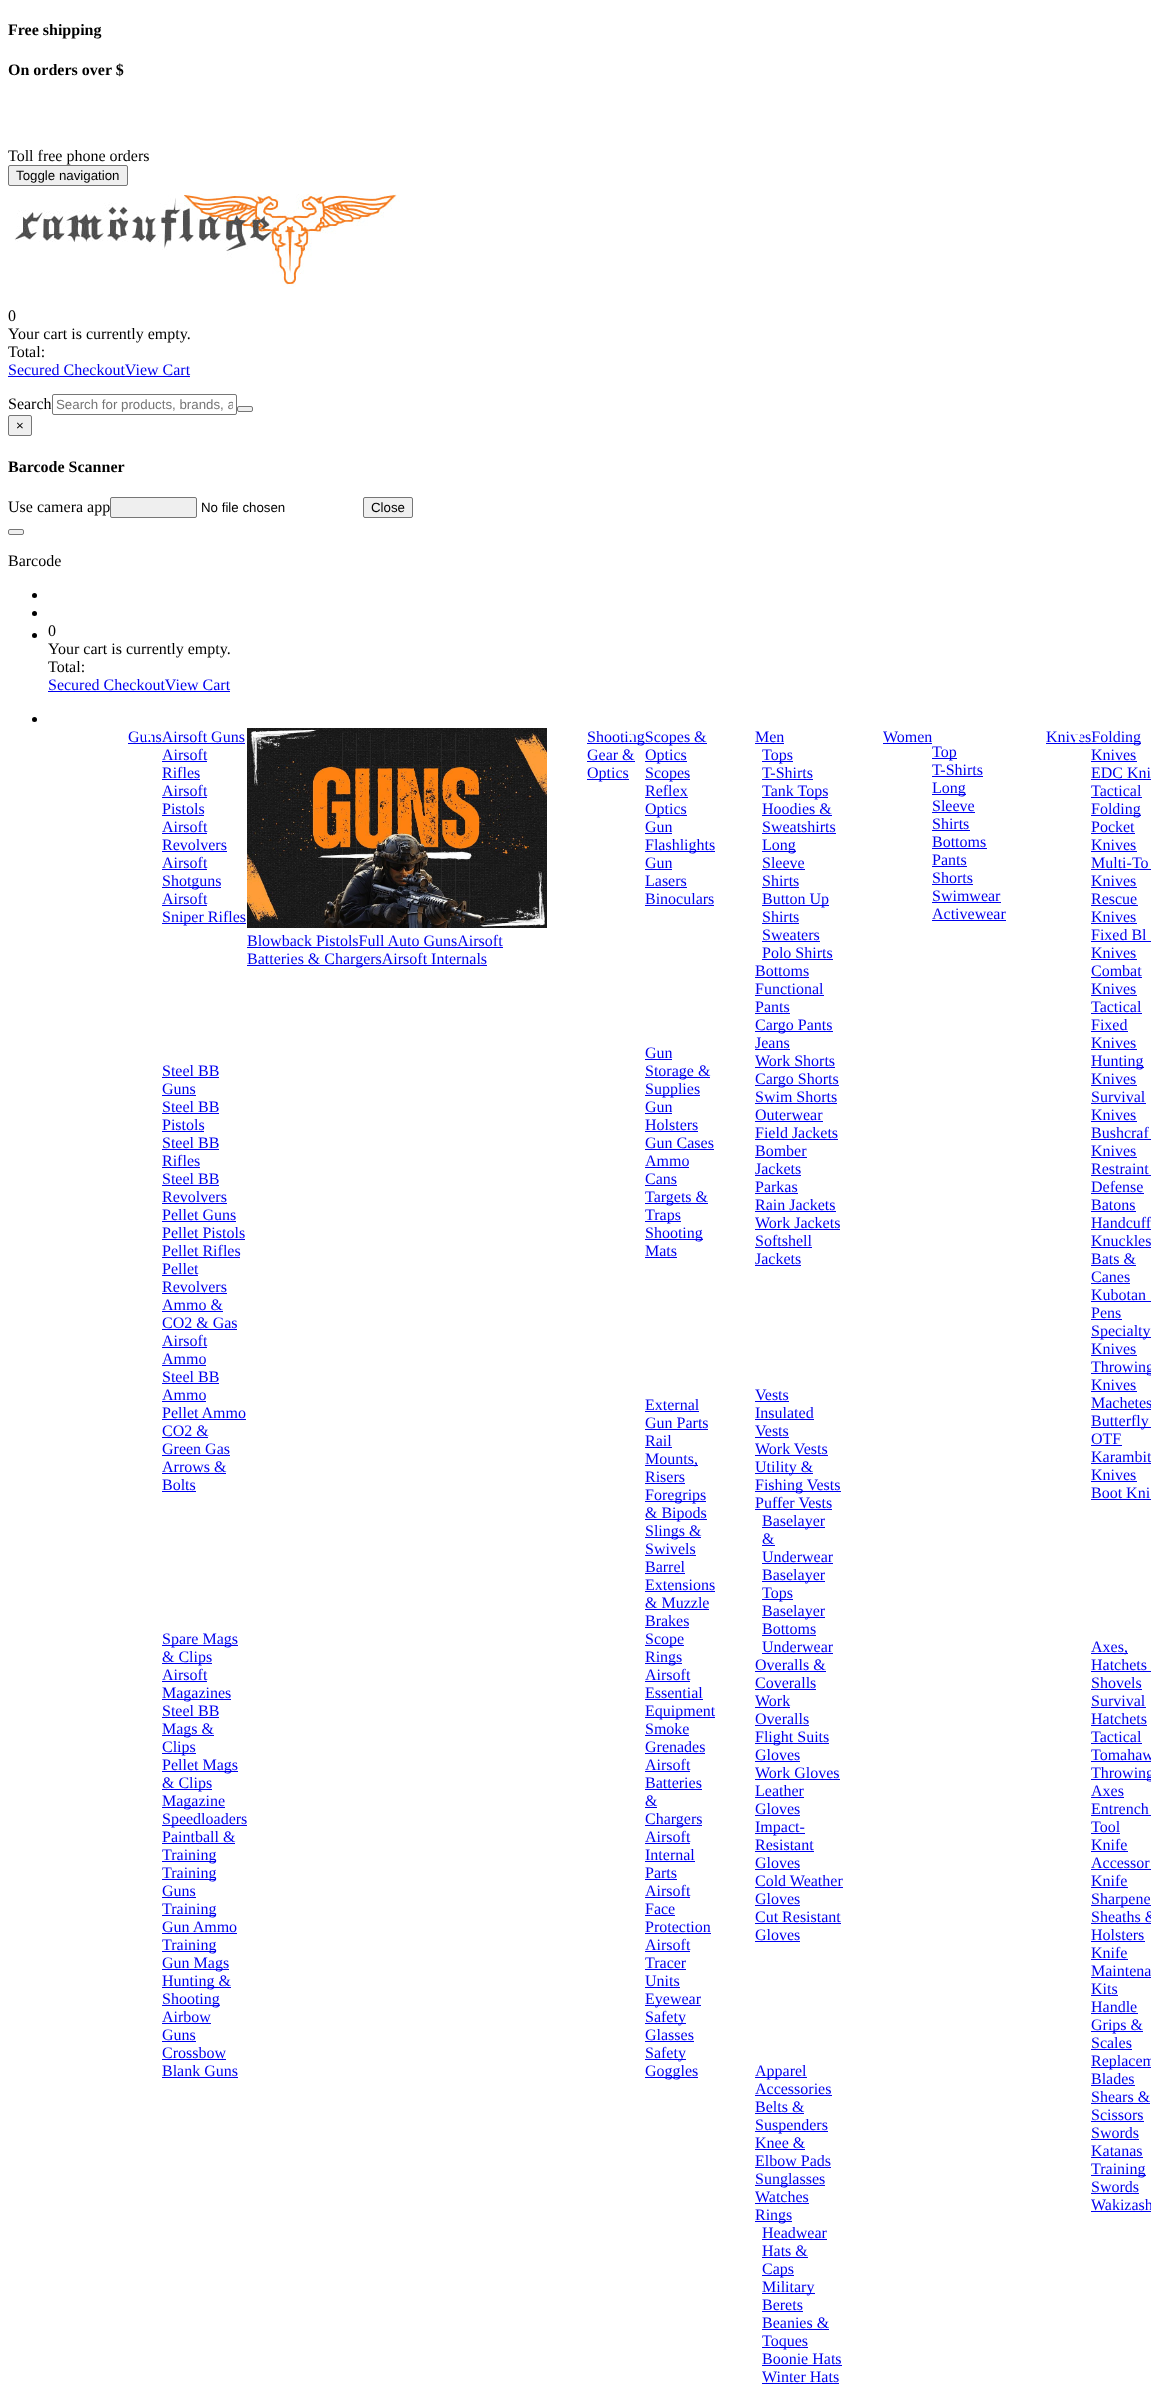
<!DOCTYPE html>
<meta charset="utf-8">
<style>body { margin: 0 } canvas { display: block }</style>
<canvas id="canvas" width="1151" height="2405"></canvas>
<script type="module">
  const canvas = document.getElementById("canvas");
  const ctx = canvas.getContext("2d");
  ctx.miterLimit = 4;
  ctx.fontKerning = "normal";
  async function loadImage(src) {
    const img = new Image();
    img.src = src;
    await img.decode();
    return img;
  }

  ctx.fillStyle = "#ffffff";
  ctx.fillRect(0, 0, 1151, 2405);
  ctx.font = "bold 16px Liberation Serif";
  ctx.fillStyle = "#000000";
  ctx.fillText("Free shipping", 8, 35);
  ctx.fillText("On orders over $", 8, 75);
  ctx.font = "16px Liberation Serif";
  ctx.fillText("Toll free phone orders", 8, 161);
  ctx.fillStyle = "#efefef";
  ctx.beginPath();
  ctx.roundRect(8.5, 165.5, 119, 20, 1.5);
  ctx.fill();
  ctx.strokeStyle = "#767676";
  ctx.stroke();
  ctx.font = "13.3px Liberation Sans";
  ctx.fillStyle = "#000000";
  ctx.fillText("Toggle navigation", 16, 180);
  ctx.drawImage(await loadImage("img1.png"), 14, 194, 386, 93);
  ctx.font = "16px Liberation Serif";
  ctx.fillText("0", 8, 321);
  ctx.fillText("Your cart is currently empty.", 8, 339);
  ctx.fillText("Total:", 8, 357);
  ctx.fillStyle = "#0000ee";
  ctx.fillText("Secured CheckoutView Cart", 8, 375);
  ctx.fillRect(8, 376, 182, 1);
  ctx.fillStyle = "#000000";
  ctx.fillText("Search", 8, 409);
  ctx.beginPath();
  ctx.roundRect(52.5, 394.5, 184, 20, 1.5);
  ctx.stroke();
  ctx.save();
  ctx.beginPath();
  ctx.rect(56, 397, 177, 15);
  ctx.clip();
  ctx.font = "13.3px Liberation Sans";
  ctx.fillStyle = "#757575";
  ctx.fillText("Search for products, brands, a", 56, 409);
  ctx.restore();
  ctx.fillStyle = "#efefef";
  ctx.beginPath();
  ctx.roundRect(237.5, 406.5, 15, 5, 1.5);
  ctx.fill();
  ctx.stroke();
  ctx.beginPath();
  ctx.roundRect(8.5, 415.5, 23, 20, 1.5);
  ctx.fill();
  ctx.stroke();
  ctx.font = "13.3px Liberation Sans";
  ctx.fillStyle = "#000000";
  ctx.fillText("×", 16, 430);
  ctx.font = "bold 16px Liberation Serif";
  ctx.fillText("Barcode Scanner", 8, 472);
  ctx.font = "16px Liberation Serif";
  ctx.fillText("Use camera app", 8, 512);
  ctx.fillStyle = "#efefef";
  ctx.beginPath();
  ctx.roundRect(110.5, 497.5, 86, 20, 1.5);
  ctx.fill();
  ctx.stroke();
  ctx.font = "13.3px Liberation Sans";
  ctx.fillStyle = "#000000";
  ctx.fillText("No file chosen", 201, 512);
  ctx.fillStyle = "#efefef";
  ctx.beginPath();
  ctx.roundRect(363.5, 497.5, 49, 20, 1.5);
  ctx.fill();
  ctx.stroke();
  ctx.fillStyle = "#000000";
  ctx.fillText("Close", 371, 512);
  ctx.fillStyle = "#efefef";
  ctx.beginPath();
  ctx.roundRect(8.5, 529.5, 15, 5, 1.5);
  ctx.fill();
  ctx.stroke();
  ctx.font = "16px Liberation Serif";
  ctx.fillStyle = "#000000";
  ctx.fillText("Barcode", 8, 566);
  ctx.beginPath();
  ctx.arc(34.5, 595.5, 2.5, 0, Math.PI * 2);
  ctx.fill();
  ctx.beginPath();
  ctx.arc(34.5, 613.5, 2.5, 0, Math.PI * 2);
  ctx.fill();
  ctx.beginPath();
  ctx.arc(34.5, 635.5, 2.5, 0, Math.PI * 2);
  ctx.fill();
  ctx.fillText("0", 48, 636);
  ctx.fillText("Your cart is currently empty.", 48, 654);
  ctx.fillText("Total:", 48, 672);
  ctx.fillStyle = "#0000ee";
  ctx.fillText("Secured CheckoutView Cart", 48, 690);
  ctx.fillRect(48, 691, 182, 1);
  ctx.fillStyle = "#000000";
  ctx.beginPath();
  ctx.arc(34.5, 719.5, 2.5, 0, Math.PI * 2);
  ctx.fill();
  ctx.fillStyle = "#0000ee";
  ctx.fillText("GunsAirsoft Guns", 128, 742);
  ctx.fillRect(128, 743, 117, 1);
  ctx.fillStyle = "#ffffff";
  ctx.fillRect(146, 735, 5, 5);
  ctx.fillStyle = "#0000ee";
  ctx.fillText("Airsoft", 162, 760);
  ctx.fillRect(162, 761, 45, 1);
  ctx.fillText("Rifles", 162, 778);
  ctx.fillRect(162, 779, 38, 1);
  ctx.fillText("Airsoft", 162, 796);
  ctx.fillRect(162, 797, 45, 1);
  ctx.fillText("Pistols", 162, 814);
  ctx.fillRect(162, 815, 42, 1);
  ctx.fillText("Airsoft", 162, 832);
  ctx.fillRect(162, 833, 45, 1);
  ctx.fillText("Revolvers", 162, 850);
  ctx.fillRect(162, 851, 65, 1);
  ctx.fillText("Airsoft", 162, 868);
  ctx.fillRect(162, 869, 45, 1);
  ctx.fillRect(162, 887, 59, 1);
  ctx.fillText("Shotguns", 162, 886);
  ctx.fillText("Airsoft", 162, 904);
  ctx.fillRect(162, 905, 45, 1);
  ctx.fillRect(162, 923, 84, 1);
  ctx.fillText("Sniper Rifles", 162, 922);
  ctx.fillText("Steel BB", 162, 1076);
  ctx.fillRect(162, 1077, 57, 1);
  ctx.fillText("Guns", 162, 1094);
  ctx.fillRect(162, 1095, 34, 1);
  ctx.fillText("Steel BB", 162, 1112);
  ctx.fillRect(162, 1113, 57, 1);
  ctx.fillText("Pistols", 162, 1130);
  ctx.fillRect(162, 1131, 42, 1);
  ctx.fillText("Steel BB", 162, 1148);
  ctx.fillRect(162, 1149, 57, 1);
  ctx.fillText("Rifles", 162, 1166);
  ctx.fillRect(162, 1167, 38, 1);
  ctx.fillText("Steel BB", 162, 1184);
  ctx.fillRect(162, 1185, 57, 1);
  ctx.fillText("Revolvers", 162, 1202);
  ctx.fillRect(162, 1203, 65, 1);
  ctx.fillText("Pellet Guns", 162, 1220);
  ctx.fillRect(162, 1221, 74, 1);
  ctx.fillText("Pellet Pistols", 162, 1238);
  ctx.fillRect(162, 1239, 83, 1);
  ctx.fillText("Pellet Rifles", 162, 1256);
  ctx.fillRect(162, 1257, 78, 1);
  ctx.fillText("Pellet", 162, 1274);
  ctx.fillRect(162, 1275, 36, 1);
  ctx.fillText("Revolvers", 162, 1292);
  ctx.fillRect(162, 1293, 65, 1);
  ctx.fillText("Ammo &", 162, 1310);
  ctx.fillRect(162, 1311, 61, 1);
  ctx.fillText("CO2 & Gas", 162, 1328);
  ctx.fillRect(162, 1329, 75, 1);
  ctx.fillText("Airsoft", 162, 1346);
  ctx.fillRect(162, 1347, 45, 1);
  ctx.fillText("Ammo", 162, 1364);
  ctx.fillRect(162, 1365, 44, 1);
  ctx.fillText("Steel BB", 162, 1382);
  ctx.fillRect(162, 1383, 57, 1);
  ctx.fillText("Ammo", 162, 1400);
  ctx.fillRect(162, 1401, 44, 1);
  ctx.fillText("Pellet Ammo", 162, 1418);
  ctx.fillRect(162, 1419, 84, 1);
  ctx.fillText("CO2 &", 162, 1436);
  ctx.fillRect(162, 1437, 46, 1);
  ctx.fillText("Green Gas", 162, 1454);
  ctx.fillRect(162, 1455, 68, 1);
  ctx.fillText("Arrows &", 162, 1472);
  ctx.fillRect(162, 1473, 64, 1);
  ctx.fillText("Bolts", 162, 1490);
  ctx.fillRect(162, 1491, 34, 1);
  ctx.fillRect(162, 1645, 76, 1);
  ctx.fillText("Spare Mags", 162, 1644);
  ctx.fillRect(162, 1663, 50, 1);
  ctx.fillText("& Clips", 162, 1662);
  ctx.fillText("Airsoft", 162, 1680);
  ctx.fillRect(162, 1681, 45, 1);
  ctx.fillRect(162, 1699, 69, 1);
  ctx.fillText("Magazines", 162, 1698);
  ctx.fillText("Steel BB", 162, 1716);
  ctx.fillRect(162, 1717, 57, 1);
  ctx.fillRect(162, 1735, 52, 1);
  ctx.fillText("Mags &", 162, 1734);
  ctx.fillRect(162, 1753, 34, 1);
  ctx.fillText("Clips", 162, 1752);
  ctx.fillRect(162, 1771, 76, 1);
  ctx.fillText("Pellet Mags", 162, 1770);
  ctx.fillRect(162, 1789, 50, 1);
  ctx.fillText("& Clips", 162, 1788);
  ctx.fillRect(162, 1807, 63, 1);
  ctx.fillText("Magazine", 162, 1806);
  ctx.fillRect(162, 1825, 85, 1);
  ctx.fillText("Speedloaders", 162, 1824);
  ctx.fillText("Paintball &", 162, 1842);
  ctx.fillRect(162, 1843, 73, 1);
  ctx.fillRect(162, 1861, 54, 1);
  ctx.fillText("Training", 162, 1860);
  ctx.fillRect(162, 1879, 54, 1);
  ctx.fillText("Training", 162, 1878);
  ctx.fillText("Guns", 162, 1896);
  ctx.fillRect(162, 1897, 34, 1);
  ctx.fillRect(162, 1915, 54, 1);
  ctx.fillText("Training", 162, 1914);
  ctx.fillText("Gun Ammo", 162, 1932);
  ctx.fillRect(162, 1933, 75, 1);
  ctx.fillRect(162, 1951, 54, 1);
  ctx.fillText("Training", 162, 1950);
  ctx.fillRect(162, 1969, 67, 1);
  ctx.fillText("Gun Mags", 162, 1968);
  ctx.fillRect(162, 1987, 69, 1);
  ctx.fillText("Hunting &", 162, 1986);
  ctx.fillRect(162, 2005, 58, 1);
  ctx.fillText("Shooting", 162, 2004);
  ctx.fillText("Airbow", 162, 2022);
  ctx.fillRect(162, 2023, 49, 1);
  ctx.fillText("Guns", 162, 2040);
  ctx.fillRect(162, 2041, 34, 1);
  ctx.fillText("Crossbow", 162, 2058);
  ctx.fillRect(162, 2059, 64, 1);
  ctx.fillText("Blank Guns", 162, 2076);
  ctx.fillRect(162, 2077, 76, 1);
  ctx.drawImage(await loadImage("img2.png"), 247, 728, 300, 200);
  ctx.fillText("Blowback PistolsFull Auto GunsAirsoft", 247, 946);
  ctx.fillRect(247, 947, 256, 1);
  ctx.fillRect(247, 965, 240, 1);
  ctx.fillText("Batteries & ChargersAirsoft Internals", 247, 964);
  ctx.fillRect(587, 743, 120, 1);
  ctx.fillText("ShootingScopes &", 587, 742);
  ctx.fillText("Gear &", 587, 760);
  ctx.fillRect(587, 761, 48, 1);
  ctx.fillRect(587, 779, 42, 1);
  ctx.fillText("Optics", 587, 778);
  ctx.fillStyle = "#ffffff";
  ctx.fillRect(629, 735, 5, 5);
  ctx.fillStyle = "#0000ee";
  ctx.fillRect(645, 761, 42, 1);
  ctx.fillText("Optics", 645, 760);
  ctx.fillRect(645, 779, 45, 1);
  ctx.fillText("Scopes", 645, 778);
  ctx.fillText("Reflex", 645, 796);
  ctx.fillRect(645, 797, 43, 1);
  ctx.fillRect(645, 815, 42, 1);
  ctx.fillText("Optics", 645, 814);
  ctx.fillText("Gun", 645, 832);
  ctx.fillRect(645, 833, 27, 1);
  ctx.fillRect(645, 851, 70, 1);
  ctx.fillText("Flashlights", 645, 850);
  ctx.fillText("Gun", 645, 868);
  ctx.fillRect(645, 869, 27, 1);
  ctx.fillText("Lasers", 645, 886);
  ctx.fillRect(645, 887, 42, 1);
  ctx.fillText("Binoculars", 645, 904);
  ctx.fillRect(645, 905, 69, 1);
  ctx.fillText("Gun", 645, 1058);
  ctx.fillRect(645, 1059, 27, 1);
  ctx.fillRect(645, 1077, 65, 1);
  ctx.fillText("Storage &", 645, 1076);
  ctx.fillRect(645, 1095, 55, 1);
  ctx.fillText("Supplies", 645, 1094);
  ctx.fillText("Gun", 645, 1112);
  ctx.fillRect(645, 1113, 27, 1);
  ctx.fillText("Holsters", 645, 1130);
  ctx.fillRect(645, 1131, 53, 1);
  ctx.fillText("Gun Cases", 645, 1148);
  ctx.fillRect(645, 1149, 69, 1);
  ctx.fillText("Ammo", 645, 1166);
  ctx.fillRect(645, 1167, 44, 1);
  ctx.fillText("Cans", 645, 1184);
  ctx.fillRect(645, 1185, 32, 1);
  ctx.fillRect(645, 1203, 63, 1);
  ctx.fillText("Targets &", 645, 1202);
  ctx.fillRect(645, 1221, 36, 1);
  ctx.fillText("Traps", 645, 1220);
  ctx.fillRect(645, 1239, 58, 1);
  ctx.fillText("Shooting", 645, 1238);
  ctx.fillText("Mats", 645, 1256);
  ctx.fillRect(645, 1257, 32, 1);
  ctx.fillText("External", 645, 1410);
  ctx.fillRect(645, 1411, 54, 1);
  ctx.fillText("Gun Parts", 645, 1428);
  ctx.fillRect(645, 1429, 63, 1);
  ctx.fillText("Rail", 645, 1446);
  ctx.fillRect(645, 1447, 27, 1);
  ctx.fillRect(645, 1465, 53, 1);
  ctx.fillText("Mounts,", 645, 1464);
  ctx.fillText("Risers", 645, 1482);
  ctx.fillRect(645, 1483, 40, 1);
  ctx.fillRect(645, 1501, 61, 1);
  ctx.fillText("Foregrips", 645, 1500);
  ctx.fillRect(645, 1519, 62, 1);
  ctx.fillText("& Bipods", 645, 1518);
  ctx.fillRect(645, 1537, 56, 1);
  ctx.fillText("Slings &", 645, 1536);
  ctx.fillText("Swivels", 645, 1554);
  ctx.fillRect(645, 1555, 51, 1);
  ctx.fillText("Barrel", 645, 1572);
  ctx.fillRect(645, 1573, 40, 1);
  ctx.fillText("Extensions", 645, 1590);
  ctx.fillRect(645, 1591, 70, 1);
  ctx.fillText("& Muzzle", 645, 1608);
  ctx.fillRect(645, 1609, 64, 1);
  ctx.fillText("Brakes", 645, 1626);
  ctx.fillRect(645, 1627, 44, 1);
  ctx.fillRect(645, 1645, 39, 1);
  ctx.fillText("Scope", 645, 1644);
  ctx.fillRect(645, 1663, 37, 1);
  ctx.fillText("Rings", 645, 1662);
  ctx.fillText("Airsoft", 645, 1680);
  ctx.fillRect(645, 1681, 45, 1);
  ctx.fillText("Essential", 645, 1698);
  ctx.fillRect(645, 1699, 58, 1);
  ctx.fillRect(645, 1717, 70, 1);
  ctx.fillText("Equipment", 645, 1716);
  ctx.fillText("Smoke", 645, 1734);
  ctx.fillRect(645, 1735, 44, 1);
  ctx.fillText("Grenades", 645, 1752);
  ctx.fillRect(645, 1753, 60, 1);
  ctx.fillText("Airsoft", 645, 1770);
  ctx.fillRect(645, 1771, 45, 1);
  ctx.fillText("Batteries", 645, 1788);
  ctx.fillRect(645, 1789, 57, 1);
  ctx.fillText("&", 645, 1806);
  ctx.fillRect(645, 1807, 12, 1);
  ctx.fillRect(645, 1825, 57, 1);
  ctx.fillText("Chargers", 645, 1824);
  ctx.fillText("Airsoft", 645, 1842);
  ctx.fillRect(645, 1843, 45, 1);
  ctx.fillText("Internal", 645, 1860);
  ctx.fillRect(645, 1861, 50, 1);
  ctx.fillText("Parts", 645, 1878);
  ctx.fillRect(645, 1879, 32, 1);
  ctx.fillText("Airsoft", 645, 1896);
  ctx.fillRect(645, 1897, 45, 1);
  ctx.fillText("Face", 645, 1914);
  ctx.fillRect(645, 1915, 30, 1);
  ctx.fillText("Protection", 645, 1932);
  ctx.fillRect(645, 1933, 66, 1);
  ctx.fillText("Airsoft", 645, 1950);
  ctx.fillRect(645, 1951, 45, 1);
  ctx.fillText("Tracer", 645, 1968);
  ctx.fillRect(645, 1969, 41, 1);
  ctx.fillText("Units", 645, 1986);
  ctx.fillRect(645, 1987, 35, 1);
  ctx.fillRect(645, 2005, 56, 1);
  ctx.fillText("Eyewear", 645, 2004);
  ctx.fillRect(645, 2023, 41, 1);
  ctx.fillText("Safety", 645, 2022);
  ctx.fillText("Glasses", 645, 2040);
  ctx.fillRect(645, 2041, 49, 1);
  ctx.fillRect(645, 2059, 41, 1);
  ctx.fillText("Safety", 645, 2058);
  ctx.fillRect(645, 2077, 53, 1);
  ctx.fillText("Goggles", 645, 2076);
  ctx.fillText("Men", 755, 742);
  ctx.fillRect(755, 743, 29, 1);
  ctx.fillRect(762, 761, 31, 1);
  ctx.fillText("Tops", 762, 760);
  ctx.fillText("T-Shirts", 762, 778);
  ctx.fillRect(762, 779, 51, 1);
  ctx.fillRect(762, 797, 66, 1);
  ctx.fillText("Tank Tops", 762, 796);
  ctx.fillText("Hoodies &", 762, 814);
  ctx.fillRect(762, 815, 70, 1);
  ctx.fillText("Sweatshirts", 762, 832);
  ctx.fillRect(762, 833, 74, 1);
  ctx.fillRect(762, 851, 34, 1);
  ctx.fillText("Long", 762, 850);
  ctx.fillText("Sleeve", 762, 868);
  ctx.fillRect(762, 869, 43, 1);
  ctx.fillText("Shirts", 762, 886);
  ctx.fillRect(762, 887, 37, 1);
  ctx.fillRect(762, 905, 67, 1);
  ctx.fillText("Button Up", 762, 904);
  ctx.fillText("Shirts", 762, 922);
  ctx.fillRect(762, 923, 37, 1);
  ctx.fillText("Sweaters", 762, 940);
  ctx.fillRect(762, 941, 58, 1);
  ctx.fillText("Polo Shirts", 762, 958);
  ctx.fillRect(762, 959, 71, 1);
  ctx.fillText("Bottoms", 755, 976);
  ctx.fillRect(755, 977, 54, 1);
  ctx.fillText("Functional", 755, 994);
  ctx.fillRect(755, 995, 69, 1);
  ctx.fillText("Pants", 755, 1012);
  ctx.fillRect(755, 1013, 35, 1);
  ctx.fillRect(755, 1031, 78, 1);
  ctx.fillText("Cargo Pants", 755, 1030);
  ctx.fillText("Jeans", 755, 1048);
  ctx.fillRect(755, 1049, 35, 1);
  ctx.fillText("Work Shorts", 755, 1066);
  ctx.fillRect(755, 1067, 80, 1);
  ctx.fillRect(755, 1085, 84, 1);
  ctx.fillText("Cargo Shorts", 755, 1084);
  ctx.fillText("Swim Shorts", 755, 1102);
  ctx.fillRect(755, 1103, 82, 1);
  ctx.fillText("Outerwear", 755, 1120);
  ctx.fillRect(755, 1121, 68, 1);
  ctx.fillText("Field Jackets", 755, 1138);
  ctx.fillRect(755, 1139, 83, 1);
  ctx.fillText("Bomber", 755, 1156);
  ctx.fillRect(755, 1157, 52, 1);
  ctx.fillText("Jackets", 755, 1174);
  ctx.fillRect(755, 1175, 46, 1);
  ctx.fillText("Parkas", 755, 1192);
  ctx.fillRect(755, 1193, 43, 1);
  ctx.fillText("Rain Jackets", 755, 1210);
  ctx.fillRect(755, 1211, 81, 1);
  ctx.fillText("Work Jackets", 755, 1228);
  ctx.fillRect(755, 1229, 85, 1);
  ctx.fillText("Softshell", 755, 1246);
  ctx.fillRect(755, 1247, 57, 1);
  ctx.fillText("Jackets", 755, 1264);
  ctx.fillRect(755, 1265, 46, 1);
  ctx.fillText("Vests", 755, 1400);
  ctx.fillRect(755, 1401, 34, 1);
  ctx.fillText("Insulated", 755, 1418);
  ctx.fillRect(755, 1419, 59, 1);
  ctx.fillText("Vests", 755, 1436);
  ctx.fillRect(755, 1437, 34, 1);
  ctx.fillText("Work Vests", 755, 1454);
  ctx.fillRect(755, 1455, 73, 1);
  ctx.fillRect(755, 1473, 58, 1);
  ctx.fillText("Utility &", 755, 1472);
  ctx.fillRect(755, 1491, 86, 1);
  ctx.fillText("Fishing Vests", 755, 1490);
  ctx.fillText("Puffer Vests", 755, 1508);
  ctx.fillRect(755, 1509, 77, 1);
  ctx.fillRect(762, 1527, 63, 1);
  ctx.fillText("Baselayer", 762, 1526);
  ctx.fillText("&", 762, 1544);
  ctx.fillRect(762, 1545, 13, 1);
  ctx.fillText("Underwear", 762, 1562);
  ctx.fillRect(762, 1563, 71, 1);
  ctx.fillRect(762, 1581, 63, 1);
  ctx.fillText("Baselayer", 762, 1580);
  ctx.fillRect(762, 1599, 31, 1);
  ctx.fillText("Tops", 762, 1598);
  ctx.fillRect(762, 1617, 63, 1);
  ctx.fillText("Baselayer", 762, 1616);
  ctx.fillText("Bottoms", 762, 1634);
  ctx.fillRect(762, 1635, 54, 1);
  ctx.fillText("Underwear", 762, 1652);
  ctx.fillRect(762, 1653, 71, 1);
  ctx.fillText("Overalls &", 755, 1670);
  ctx.fillRect(755, 1671, 71, 1);
  ctx.fillText("Coveralls", 755, 1688);
  ctx.fillRect(755, 1689, 61, 1);
  ctx.fillText("Work", 755, 1706);
  ctx.fillRect(755, 1707, 35, 1);
  ctx.fillText("Overalls", 755, 1724);
  ctx.fillRect(755, 1725, 54, 1);
  ctx.fillRect(755, 1743, 74, 1);
  ctx.fillText("Flight Suits", 755, 1742);
  ctx.fillText("Gloves", 755, 1760);
  ctx.fillRect(755, 1761, 45, 1);
  ctx.fillText("Work Gloves", 755, 1778);
  ctx.fillRect(755, 1779, 85, 1);
  ctx.fillText("Leather", 755, 1796);
  ctx.fillRect(755, 1797, 49, 1);
  ctx.fillText("Gloves", 755, 1814);
  ctx.fillRect(755, 1815, 45, 1);
  ctx.fillRect(755, 1833, 50, 1);
  ctx.fillText("Impact-", 755, 1832);
  ctx.fillText("Resistant", 755, 1850);
  ctx.fillRect(755, 1851, 59, 1);
  ctx.fillText("Gloves", 755, 1868);
  ctx.fillRect(755, 1869, 45, 1);
  ctx.fillText("Cold Weather", 755, 1886);
  ctx.fillRect(755, 1887, 88, 1);
  ctx.fillText("Gloves", 755, 1904);
  ctx.fillRect(755, 1905, 45, 1);
  ctx.fillText("Cut Resistant", 755, 1922);
  ctx.fillRect(755, 1923, 86, 1);
  ctx.fillText("Gloves", 755, 1940);
  ctx.fillRect(755, 1941, 45, 1);
  ctx.fillRect(755, 2077, 52, 1);
  ctx.fillText("Apparel", 755, 2076);
  ctx.fillText("Accessories", 755, 2094);
  ctx.fillRect(755, 2095, 77, 1);
  ctx.fillText("Belts &", 755, 2112);
  ctx.fillRect(755, 2113, 49, 1);
  ctx.fillRect(755, 2131, 73, 1);
  ctx.fillText("Suspenders", 755, 2130);
  ctx.fillText("Knee &", 755, 2148);
  ctx.fillRect(755, 2149, 50, 1);
  ctx.fillText("Elbow Pads", 755, 2166);
  ctx.fillRect(755, 2167, 76, 1);
  ctx.fillRect(755, 2185, 70, 1);
  ctx.fillText("Sunglasses", 755, 2184);
  ctx.fillText("Watches", 755, 2202);
  ctx.fillRect(755, 2203, 54, 1);
  ctx.fillRect(755, 2221, 37, 1);
  ctx.fillText("Rings", 755, 2220);
  ctx.fillText("Headwear", 762, 2238);
  ctx.fillRect(762, 2239, 65, 1);
  ctx.fillText("Hats &", 762, 2256);
  ctx.fillRect(762, 2257, 46, 1);
  ctx.fillRect(762, 2275, 32, 1);
  ctx.fillText("Caps", 762, 2274);
  ctx.fillRect(762, 2293, 53, 1);
  ctx.fillText("Military", 762, 2292);
  ctx.fillText("Berets", 762, 2310);
  ctx.fillRect(762, 2311, 41, 1);
  ctx.fillText("Beanies &", 762, 2328);
  ctx.fillRect(762, 2329, 67, 1);
  ctx.fillRect(762, 2347, 46, 1);
  ctx.fillText("Toques", 762, 2346);
  ctx.fillText("Boonie Hats", 762, 2364);
  ctx.fillRect(762, 2365, 80, 1);
  ctx.fillText("Winter Hats", 762, 2382);
  ctx.fillRect(762, 2383, 77, 1);
  ctx.fillText("Women", 883, 742);
  ctx.fillRect(883, 743, 49, 1);
  ctx.fillRect(932, 758, 25, 1);
  ctx.fillText("Top", 932, 757);
  ctx.fillText("T-Shirts", 932, 775);
  ctx.fillRect(932, 776, 51, 1);
  ctx.fillRect(932, 794, 34, 1);
  ctx.fillText("Long", 932, 793);
  ctx.fillText("Sleeve", 932, 811);
  ctx.fillRect(932, 812, 43, 1);
  ctx.fillText("Shirts", 932, 829);
  ctx.fillRect(932, 830, 38, 1);
  ctx.fillText("Bottoms", 932, 847);
  ctx.fillRect(932, 848, 55, 1);
  ctx.fillText("Pants", 932, 865);
  ctx.fillRect(932, 866, 35, 1);
  ctx.fillText("Shorts", 932, 883);
  ctx.fillRect(932, 884, 41, 1);
  ctx.fillText("Swimwear", 932, 901);
  ctx.fillRect(932, 902, 69, 1);
  ctx.fillText("Activewear", 932, 919);
  ctx.fillRect(932, 920, 74, 1);
  ctx.fillRect(1046, 743, 95, 1);
  ctx.fillText("KnivesFolding", 1046, 742);
  ctx.fillStyle = "#ffffff";
  ctx.fillRect(1075, 735, 5, 5);
  ctx.fillStyle = "#0000ee";
  ctx.fillText("Knives", 1091, 760);
  ctx.fillRect(1091, 761, 46, 1);
  ctx.fillText("EDC Kni", 1091, 778);
  ctx.fillRect(1091, 779, 60, 1);
  ctx.fillText("Tactical", 1091, 796);
  ctx.fillRect(1091, 797, 51, 1);
  ctx.fillRect(1091, 815, 50, 1);
  ctx.fillText("Folding", 1091, 814);
  ctx.fillText("Pocket", 1091, 832);
  ctx.fillRect(1091, 833, 44, 1);
  ctx.fillText("Knives", 1091, 850);
  ctx.fillRect(1091, 851, 46, 1);
  ctx.fillText("Multi-To", 1091, 868);
  ctx.fillRect(1091, 869, 60, 1);
  ctx.fillText("Knives", 1091, 886);
  ctx.fillRect(1091, 887, 46, 1);
  ctx.fillText("Rescue", 1091, 904);
  ctx.fillRect(1091, 905, 47, 1);
  ctx.fillText("Knives", 1091, 922);
  ctx.fillRect(1091, 923, 46, 1);
  ctx.fillText("Fixed Bl", 1091, 940);
  ctx.fillRect(1091, 941, 60, 1);
  ctx.fillText("Knives", 1091, 958);
  ctx.fillRect(1091, 959, 46, 1);
  ctx.fillText("Combat", 1091, 976);
  ctx.fillRect(1091, 977, 51, 1);
  ctx.fillText("Knives", 1091, 994);
  ctx.fillRect(1091, 995, 46, 1);
  ctx.fillText("Tactical", 1091, 1012);
  ctx.fillRect(1091, 1013, 51, 1);
  ctx.fillText("Fixed", 1091, 1030);
  ctx.fillRect(1091, 1031, 37, 1);
  ctx.fillText("Knives", 1091, 1048);
  ctx.fillRect(1091, 1049, 46, 1);
  ctx.fillRect(1091, 1067, 53, 1);
  ctx.fillText("Hunting", 1091, 1066);
  ctx.fillText("Knives", 1091, 1084);
  ctx.fillRect(1091, 1085, 46, 1);
  ctx.fillText("Survival", 1091, 1102);
  ctx.fillRect(1091, 1103, 55, 1);
  ctx.fillText("Knives", 1091, 1120);
  ctx.fillRect(1091, 1121, 46, 1);
  ctx.fillText("Bushcraf", 1091, 1138);
  ctx.fillRect(1091, 1139, 60, 1);
  ctx.fillText("Knives", 1091, 1156);
  ctx.fillRect(1091, 1157, 46, 1);
  ctx.fillText("Restraint", 1091, 1174);
  ctx.fillRect(1091, 1175, 60, 1);
  ctx.fillText("Defense", 1091, 1192);
  ctx.fillRect(1091, 1193, 53, 1);
  ctx.fillText("Batons", 1091, 1210);
  ctx.fillRect(1091, 1211, 45, 1);
  ctx.fillText("Handcuff", 1091, 1228);
  ctx.fillRect(1091, 1229, 60, 1);
  ctx.fillText("Knuckles", 1091, 1246);
  ctx.fillRect(1091, 1247, 60, 1);
  ctx.fillText("Bats &", 1091, 1264);
  ctx.fillRect(1091, 1265, 45, 1);
  ctx.fillText("Canes", 1091, 1282);
  ctx.fillRect(1091, 1283, 39, 1);
  ctx.fillText("Kubotan", 1091, 1300);
  ctx.fillRect(1091, 1301, 60, 1);
  ctx.fillText("Pens", 1091, 1318);
  ctx.fillRect(1091, 1319, 31, 1);
  ctx.fillRect(1091, 1337, 60, 1);
  ctx.fillText("Specialty", 1091, 1336);
  ctx.fillText("Knives", 1091, 1354);
  ctx.fillRect(1091, 1355, 46, 1);
  ctx.fillRect(1091, 1373, 60, 1);
  ctx.fillText("Throwing", 1091, 1372);
  ctx.fillText("Knives", 1091, 1390);
  ctx.fillRect(1091, 1391, 46, 1);
  ctx.fillText("Machetes", 1091, 1408);
  ctx.fillRect(1091, 1409, 60, 1);
  ctx.fillRect(1091, 1427, 60, 1);
  ctx.fillText("Butterfly", 1091, 1426);
  ctx.fillText("OTF", 1091, 1444);
  ctx.fillRect(1091, 1445, 31, 1);
  ctx.fillText("Karambit", 1091, 1462);
  ctx.fillRect(1091, 1463, 60, 1);
  ctx.fillText("Knives", 1091, 1480);
  ctx.fillRect(1091, 1481, 46, 1);
  ctx.fillText("Boot Kni", 1091, 1498);
  ctx.fillRect(1091, 1499, 60, 1);
  ctx.fillRect(1091, 1653, 37, 1);
  ctx.fillText("Axes,", 1091, 1652);
  ctx.fillText("Hatchets", 1091, 1670);
  ctx.fillRect(1091, 1671, 60, 1);
  ctx.fillText("Shovels", 1091, 1688);
  ctx.fillRect(1091, 1689, 51, 1);
  ctx.fillText("Survival", 1091, 1706);
  ctx.fillRect(1091, 1707, 55, 1);
  ctx.fillText("Hatchets", 1091, 1724);
  ctx.fillRect(1091, 1725, 56, 1);
  ctx.fillText("Tactical", 1091, 1742);
  ctx.fillRect(1091, 1743, 51, 1);
  ctx.fillText("Tomahaw", 1091, 1760);
  ctx.fillRect(1091, 1761, 60, 1);
  ctx.fillRect(1091, 1779, 60, 1);
  ctx.fillText("Throwing", 1091, 1778);
  ctx.fillText("Axes", 1091, 1796);
  ctx.fillRect(1091, 1797, 33, 1);
  ctx.fillText("Entrench", 1091, 1814);
  ctx.fillRect(1091, 1815, 60, 1);
  ctx.fillText("Tool", 1091, 1832);
  ctx.fillRect(1091, 1833, 29, 1);
  ctx.fillText("Knife", 1091, 1850);
  ctx.fillRect(1091, 1851, 37, 1);
  ctx.fillText("Accessor", 1091, 1868);
  ctx.fillRect(1091, 1869, 60, 1);
  ctx.fillText("Knife", 1091, 1886);
  ctx.fillRect(1091, 1887, 37, 1);
  ctx.fillRect(1091, 1905, 60, 1);
  ctx.fillText("Sharpene", 1091, 1904);
  ctx.fillText("Sheaths &", 1091, 1922);
  ctx.fillRect(1091, 1923, 60, 1);
  ctx.fillText("Holsters", 1091, 1940);
  ctx.fillRect(1091, 1941, 54, 1);
  ctx.fillText("Knife", 1091, 1958);
  ctx.fillRect(1091, 1959, 37, 1);
  ctx.fillText("Maintena", 1091, 1976);
  ctx.fillRect(1091, 1977, 60, 1);
  ctx.fillText("Kits", 1091, 1994);
  ctx.fillRect(1091, 1995, 27, 1);
  ctx.fillText("Handle", 1091, 2012);
  ctx.fillRect(1091, 2013, 47, 1);
  ctx.fillRect(1091, 2031, 52, 1);
  ctx.fillText("Grips &", 1091, 2030);
  ctx.fillText("Scales", 1091, 2048);
  ctx.fillRect(1091, 2049, 41, 1);
  ctx.fillRect(1091, 2067, 60, 1);
  ctx.fillText("Replacem", 1091, 2066);
  ctx.fillText("Blades", 1091, 2084);
  ctx.fillRect(1091, 2085, 44, 1);
  ctx.fillText("Shears &", 1091, 2102);
  ctx.fillRect(1091, 2103, 59, 1);
  ctx.fillText("Scissors", 1091, 2120);
  ctx.fillRect(1091, 2121, 53, 1);
  ctx.fillText("Swords", 1091, 2138);
  ctx.fillRect(1091, 2139, 48, 1);
  ctx.fillText("Katanas", 1091, 2156);
  ctx.fillRect(1091, 2157, 52, 1);
  ctx.fillRect(1091, 2175, 55, 1);
  ctx.fillText("Training", 1091, 2174);
  ctx.fillText("Swords", 1091, 2192);
  ctx.fillRect(1091, 2193, 48, 1);
  ctx.fillText("Wakizash", 1091, 2210);
  ctx.fillRect(1091, 2211, 60, 1);
</script>
